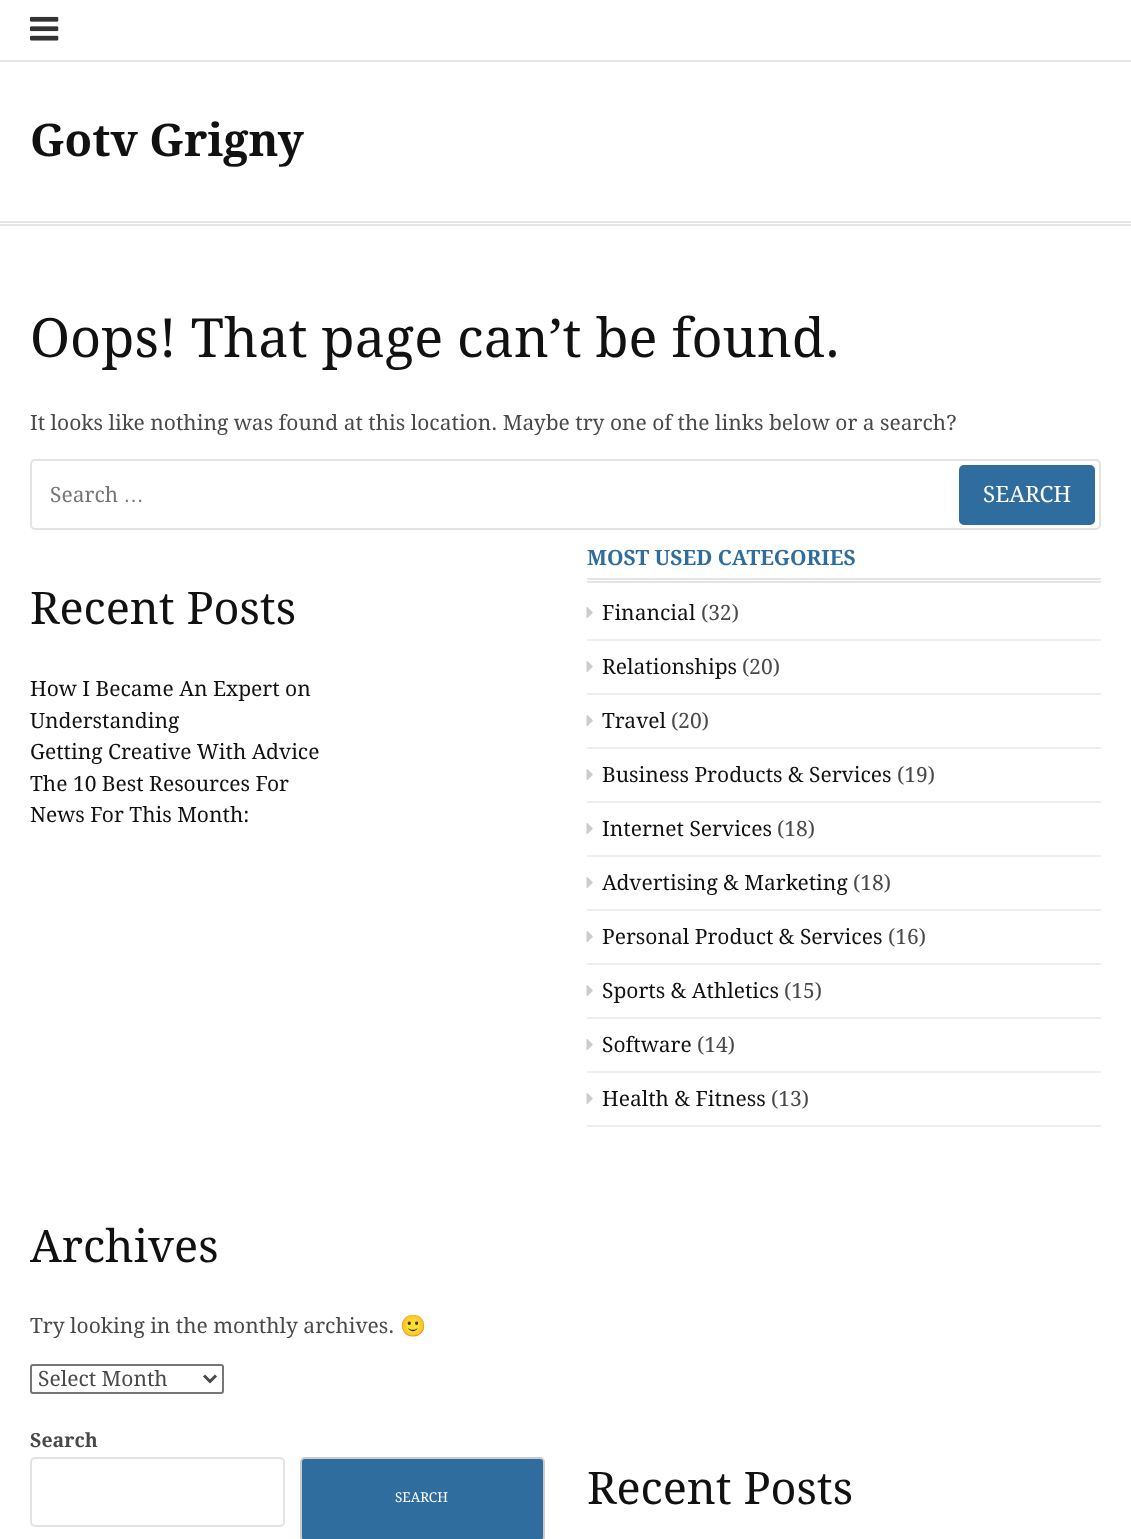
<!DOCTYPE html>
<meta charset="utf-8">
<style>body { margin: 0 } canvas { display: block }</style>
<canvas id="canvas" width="1131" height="1539"></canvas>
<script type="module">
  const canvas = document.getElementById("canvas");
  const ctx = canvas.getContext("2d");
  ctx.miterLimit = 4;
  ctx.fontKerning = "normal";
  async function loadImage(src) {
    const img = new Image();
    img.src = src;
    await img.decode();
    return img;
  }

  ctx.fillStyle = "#ffffff";
  ctx.fillRect(0, 0, 1131, 1539);
  ctx.fillStyle = "#e5e5e5";
  ctx.fillRect(0, 221, 1131, 2);
  ctx.fillRect(0, 224, 1131, 2);
  ctx.fillRect(0, 60, 1131, 2);
  ctx.drawImage(await loadImage("img1.png"), 30, 16, 29, 25);
  ctx.font = "bold 45px Droid Serif";
  ctx.fillStyle = "#111111";
  ctx.fillText("Gotv Grigny", 30, 156);
  ctx.font = "54px Droid Serif";
  ctx.fillText("Oops! That page can’t be found.", 30, 357);
  ctx.font = "21px Droid Serif";
  ctx.fillStyle = "#494949";
  ctx.fillText("It looks like nothing was found at this location. Maybe try one of the links below or a search?", 30, 430);
  ctx.beginPath();
  ctx.roundRect(31, 460, 1069, 69, 4);
  ctx.strokeStyle = "#e3e3e3";
  ctx.lineWidth = 2;
  ctx.stroke();
  ctx.fillStyle = "#757575";
  ctx.fillText("Search", 50, 502);
  ctx.font = "21px Liberation Sans";
  ctx.fillText("…", 123, 502);
  ctx.fillStyle = "#2e6d9d";
  ctx.beginPath();
  ctx.roundRect(960, 466, 134, 58, 4);
  ctx.fill();
  ctx.strokeStyle = "#2e6d9d";
  ctx.stroke();
  ctx.font = "22.5px Droid Serif";
  ctx.fillStyle = "#ffffff";
  ctx.fillText("SEARCH", 983, 502);
  ctx.font = "45px Droid Serif";
  ctx.fillStyle = "#111111";
  ctx.fillText("Recent Posts", 30, 624);
  ctx.font = "21px Droid Serif";
  ctx.fillText("How I Became An Expert on", 30, 696);
  ctx.fillText("Understanding", 30, 728);
  ctx.fillText("Getting Creative With Advice", 30, 759);
  ctx.fillText("The 10 Best Resources For", 30, 791);
  ctx.fillText("News For This Month:", 30, 822);
  ctx.fillStyle = "#e5e5e5";
  ctx.fillRect(587, 578, 514, 2);
  ctx.fillRect(587, 581, 514, 2);
  ctx.font = "bold 21px Droid Serif";
  ctx.fillStyle = "#2e6d9d";
  ctx.fillText("MOST USED CATEGORIES", 587, 565);
  ctx.fillStyle = "#eeeeee";
  ctx.fillRect(587, 639, 514, 2);
  ctx.drawImage(await loadImage("img2.png"), 586, 607, 7, 11);
  ctx.font = "21px Droid Serif";
  ctx.fillStyle = "#111111";
  ctx.fillText("Financial", 602, 620);
  ctx.fillStyle = "#494949";
  ctx.fillText("(32)", 701, 620);
  ctx.fillStyle = "#eeeeee";
  ctx.fillRect(587, 693, 514, 2);
  ctx.drawImage(await loadImage("img2.png"), 586, 661, 7, 11);
  ctx.fillStyle = "#111111";
  ctx.fillText("Relationships", 602, 674);
  ctx.fillStyle = "#494949";
  ctx.fillText("(20)", 742, 674);
  ctx.fillStyle = "#eeeeee";
  ctx.fillRect(587, 747, 514, 2);
  ctx.drawImage(await loadImage("img2.png"), 586, 715, 7, 11);
  ctx.fillStyle = "#111111";
  ctx.fillText("Travel", 602, 728);
  ctx.fillStyle = "#494949";
  ctx.fillText("(20)", 671, 728);
  ctx.fillStyle = "#eeeeee";
  ctx.fillRect(587, 801, 514, 2);
  ctx.drawImage(await loadImage("img2.png"), 586, 769, 7, 11);
  ctx.fillStyle = "#111111";
  ctx.fillText("Business Products & Services", 602, 782);
  ctx.fillStyle = "#494949";
  ctx.fillText("(19)", 897, 782);
  ctx.fillStyle = "#eeeeee";
  ctx.fillRect(587, 855, 514, 2);
  ctx.drawImage(await loadImage("img2.png"), 586, 823, 7, 11);
  ctx.fillStyle = "#111111";
  ctx.fillText("Internet Services", 602, 836);
  ctx.fillStyle = "#494949";
  ctx.fillText("(18)", 777, 836);
  ctx.fillStyle = "#eeeeee";
  ctx.fillRect(587, 909, 514, 2);
  ctx.drawImage(await loadImage("img2.png"), 586, 877, 7, 11);
  ctx.fillStyle = "#111111";
  ctx.fillText("Advertising & Marketing", 602, 890);
  ctx.fillStyle = "#494949";
  ctx.fillText("(18)", 853, 890);
  ctx.fillStyle = "#eeeeee";
  ctx.fillRect(587, 963, 514, 2);
  ctx.drawImage(await loadImage("img2.png"), 586, 931, 7, 11);
  ctx.fillStyle = "#111111";
  ctx.fillText("Personal Product & Services", 602, 944);
  ctx.fillStyle = "#494949";
  ctx.fillText("(16)", 888, 944);
  ctx.fillStyle = "#eeeeee";
  ctx.fillRect(587, 1017, 514, 2);
  ctx.drawImage(await loadImage("img2.png"), 586, 985, 7, 11);
  ctx.fillStyle = "#111111";
  ctx.fillText("Sports & Athletics", 602, 998);
  ctx.fillStyle = "#494949";
  ctx.fillText("(15)", 784, 998);
  ctx.fillStyle = "#eeeeee";
  ctx.fillRect(587, 1071, 514, 2);
  ctx.drawImage(await loadImage("img2.png"), 586, 1039, 7, 11);
  ctx.fillStyle = "#111111";
  ctx.fillText("Software", 602, 1052);
  ctx.fillStyle = "#494949";
  ctx.fillText("(14)", 697, 1052);
  ctx.fillStyle = "#eeeeee";
  ctx.fillRect(587, 1125, 514, 2);
  ctx.drawImage(await loadImage("img2.png"), 586, 1093, 7, 11);
  ctx.fillStyle = "#111111";
  ctx.fillText("Health & Fitness", 602, 1106);
  ctx.fillStyle = "#494949";
  ctx.fillText("(13)", 771, 1106);
  ctx.font = "45px Droid Serif";
  ctx.fillStyle = "#111111";
  ctx.fillText("Archives", 30, 1262);
  ctx.font = "21px Droid Serif";
  ctx.fillStyle = "#494949";
  ctx.fillText("Try looking in the monthly archives.", 30, 1333);
  ctx.font = "21px Noto Color Emoji";
  ctx.fillText("🙂", 400, 1333);
  ctx.beginPath();
  ctx.roundRect(31, 1365, 192, 28, 2);
  ctx.strokeStyle = "#767676";
  ctx.stroke();
  ctx.beginPath();
  ctx.moveTo(204, 1375.5);
  ctx.lineTo(210, 1381.5);
  ctx.lineTo(216, 1375.5);
  ctx.strokeStyle = "#494949";
  ctx.lineWidth = 3;
  ctx.stroke();
  ctx.font = "21px Droid Serif";
  ctx.fillText("Select Month", 38, 1386);
  ctx.font = "bold 19.5px Droid Serif";
  ctx.fillText("Search", 30, 1447);
  ctx.beginPath();
  ctx.roundRect(31, 1458, 253, 68, 4);
  ctx.strokeStyle = "#e3e3e3";
  ctx.lineWidth = 2;
  ctx.stroke();
  ctx.fillStyle = "#2e6d9d";
  ctx.beginPath();
  ctx.roundRect(301, 1458, 243, 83, 4);
  ctx.fill();
  ctx.strokeStyle = "#cccccc";
  ctx.stroke();
  ctx.font = "13.5px Droid Serif";
  ctx.fillStyle = "#ffffff";
  ctx.fillText("SEARCH", 395, 1502);
  ctx.font = "45px Droid Serif";
  ctx.fillStyle = "#111111";
  ctx.fillText("Recent Posts", 587, 1504);
</script>
